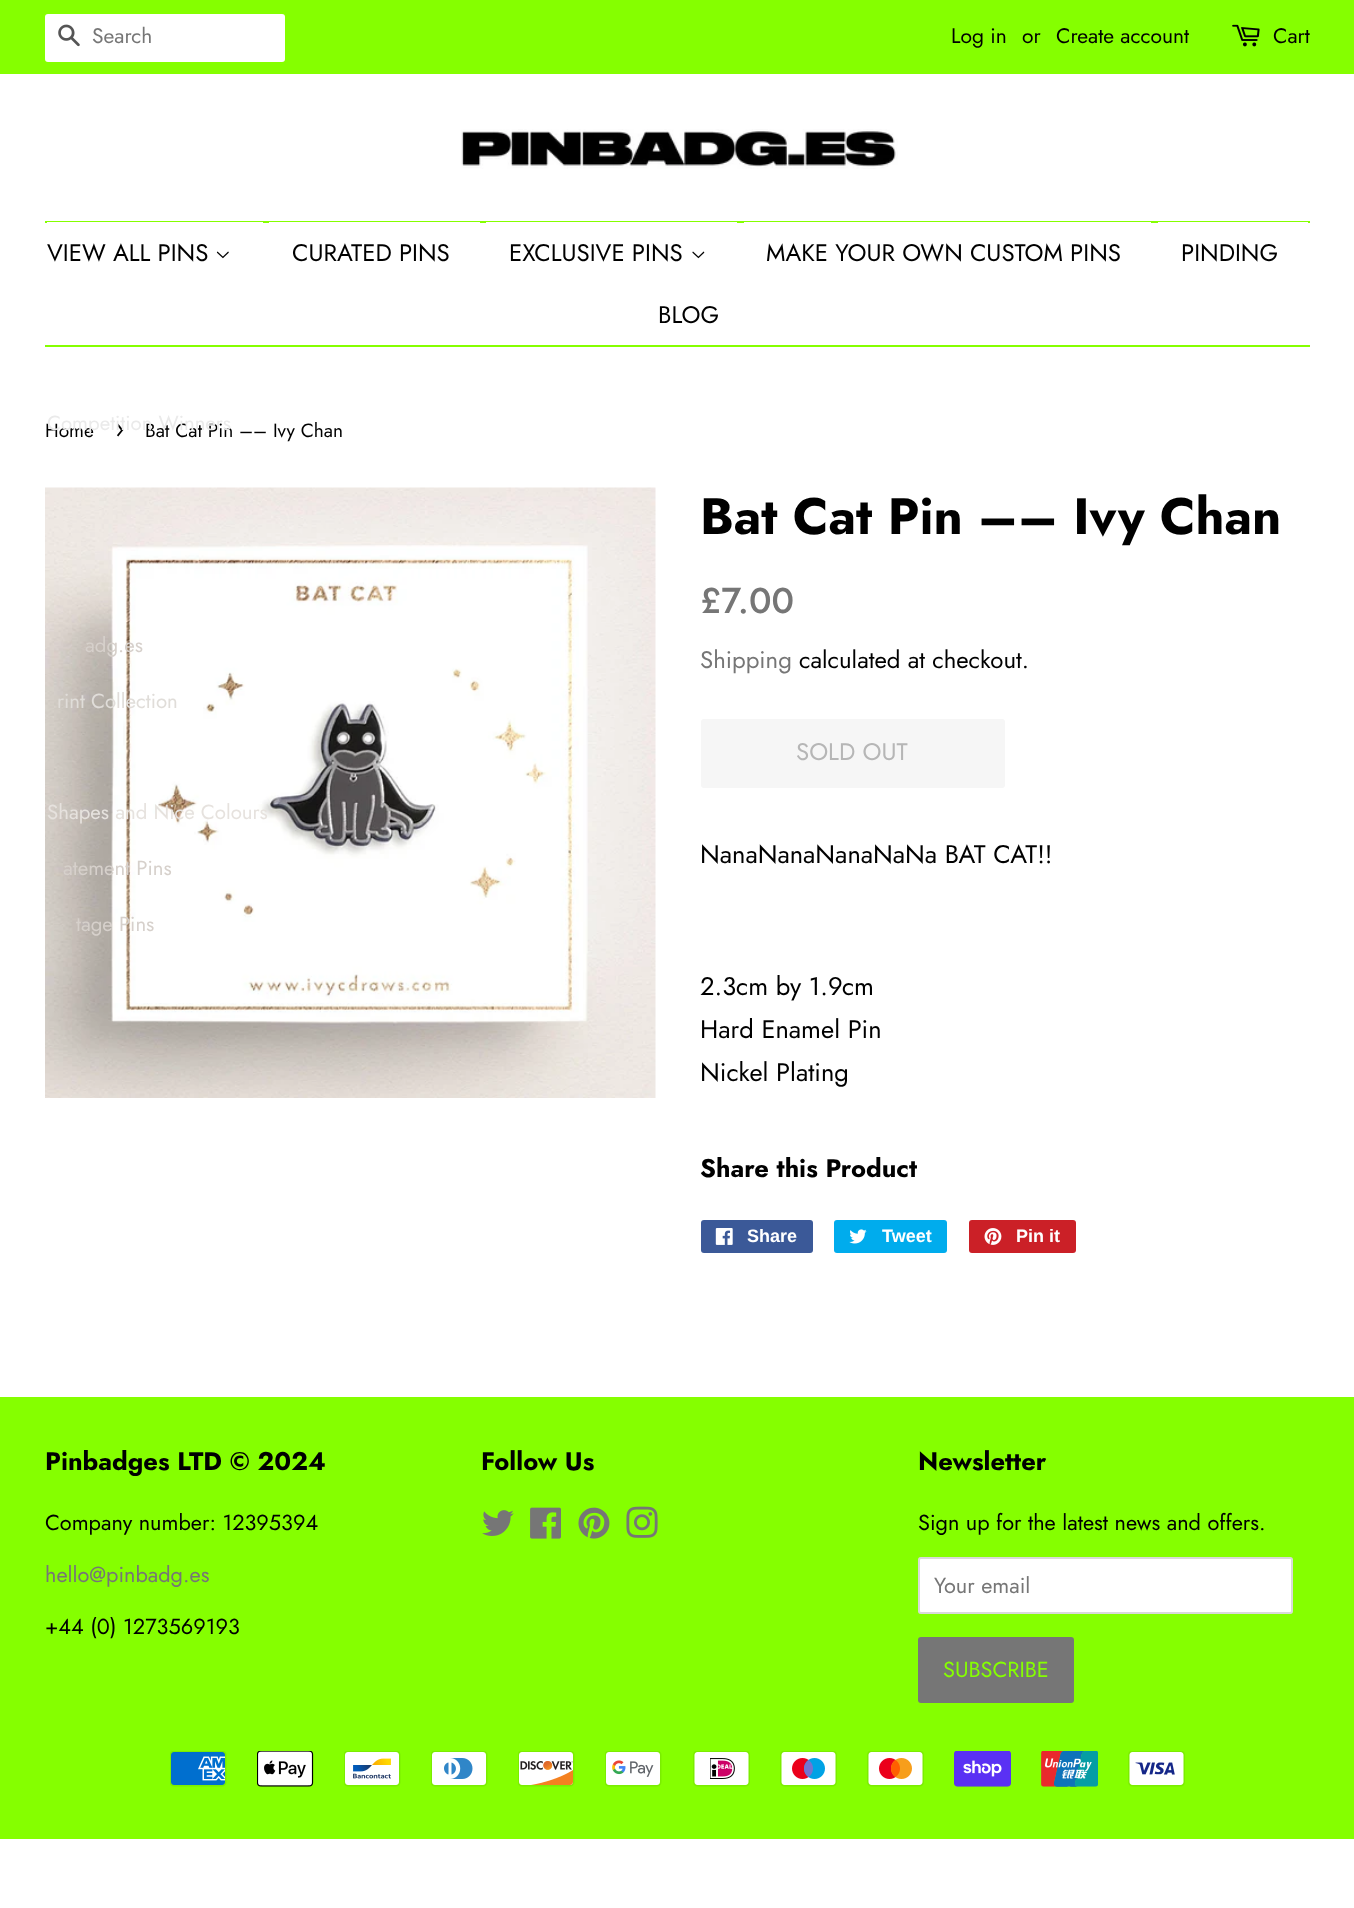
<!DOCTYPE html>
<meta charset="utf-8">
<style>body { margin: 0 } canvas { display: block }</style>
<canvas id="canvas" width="1354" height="1908"></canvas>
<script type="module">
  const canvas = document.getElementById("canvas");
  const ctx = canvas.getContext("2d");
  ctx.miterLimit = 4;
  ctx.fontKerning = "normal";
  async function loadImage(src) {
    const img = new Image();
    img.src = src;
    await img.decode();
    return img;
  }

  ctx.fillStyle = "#ffffff";
  ctx.fillRect(0, 0, 1354, 1908);
  ctx.fillStyle = "#85ff00";
  ctx.fillRect(0, 0, 1354, 74);
  ctx.fillStyle = "#ffffff";
  ctx.beginPath();
  ctx.roundRect(45, 14, 240, 48, 3);
  ctx.fill();
  ctx.drawImage(await loadImage("img1.png"), 58, 24, 22, 23);
  ctx.font = "21px Jost";
  ctx.fillStyle = "#767676";
  ctx.fillText("Search", 92, 43);
  ctx.fillStyle = "#000000";
  ctx.fillText("Log in", 951, 43);
  ctx.fillText("or", 1022, 43);
  ctx.fillText("Create account", 1056, 43);
  ctx.drawImage(await loadImage("img2.png"), 1232, 24, 28, 23);
  ctx.fillText("Cart", 1273, 43);
  ctx.drawImage(await loadImage("img3.png"), 461, 129, 437, 40);
  ctx.fillStyle = "#85ff00";
  ctx.fillRect(45, 221, 1265, 2);
  ctx.fillRect(45, 345, 1265, 2);
  ctx.fillStyle = "#ffffff";
  ctx.fillRect(47, 222, 216, 1);
  ctx.font = "24px Jost";
  ctx.fillStyle = "#000000";
  ctx.fillText("VIEW ALL PINS", 47, 261);
  ctx.drawImage(await loadImage("img4.png"), 216, 251, 13, 8);
  ctx.font = "19.1px Jost";
  ctx.fillText("Home", 45, 437);
  ctx.font = "27px Jost";
  ctx.fillText("›", 115, 437);
  ctx.font = "19.1px Jost";
  ctx.fillText("Bat Cat Pin –– Ivy Chan", 145, 437);
  ctx.font = "20.4px Jost";
  ctx.fillStyle = "#eaeaea";
  ctx.fillText("Competition Winners", 47, 430);
  ctx.drawImage(await loadImage("img6.png"), 45, 487, 611, 611);
  ctx.fillStyle = "#d6d0cb";
  ctx.fillText("adg.es", 85, 652);
  ctx.fillStyle = "#e0ddd9";
  ctx.fillText("rint Collection", 57, 708);
  ctx.fillStyle = "#e6e2de";
  ctx.fillText("Shapes and Nice Colours", 47, 819);
  ctx.fillStyle = "#d6d0cb";
  ctx.fillText("atement Pins", 63, 875);
  ctx.fillText("tage Pins", 76, 931);
  ctx.fillStyle = "#ffffff";
  ctx.fillRect(269, 222, 211, 1);
  ctx.font = "24px Jost";
  ctx.fillStyle = "#000000";
  ctx.fillText("CURATED PINS", 292, 261);
  ctx.fillStyle = "#ffffff";
  ctx.fillRect(486, 222, 251, 1);
  ctx.fillStyle = "#000000";
  ctx.fillText("EXCLUSIVE PINS", 509, 261);
  ctx.drawImage(await loadImage("img5.png"), 692, 251, 13, 8);
  ctx.fillStyle = "#ffffff";
  ctx.fillRect(744, 222, 407, 1);
  ctx.fillStyle = "#000000";
  ctx.fillText("MAKE YOUR OWN CUSTOM PINS", 766, 261);
  ctx.fillStyle = "#ffffff";
  ctx.fillRect(1158, 222, 150, 1);
  ctx.fillStyle = "#000000";
  ctx.fillText("PINDING", 1181, 261);
  ctx.fillText("BLOG", 658, 323);
  ctx.font = "bold 51px Jost";
  ctx.fillText("Bat Cat Pin –– Ivy Chan", 700, 534);
  ctx.font = "500 36px Jost";
  ctx.fillStyle = "#767676";
  ctx.fillText("£7.00", 700, 613);
  ctx.font = "24px Jost";
  ctx.fillText("Shipping", 700, 668);
  ctx.fillStyle = "#000000";
  ctx.fillText("calculated at checkout.", 799, 668);
  ctx.fillStyle = "#f6f6f6";
  ctx.beginPath();
  ctx.roundRect(701, 719, 304, 69, 3);
  ctx.fill();
  ctx.fillStyle = "#b6b6b6";
  ctx.fillText("SOLD OUT", 796, 760);
  ctx.font = "25.5px Jost";
  ctx.fillStyle = "#000000";
  ctx.fillText("NanaNanaNanaNaNa BAT CAT!!", 700, 863);
  ctx.fillText("2.3cm by 1.9cm", 700, 995);
  ctx.fillText("Hard Enamel Pin", 700, 1038);
  ctx.fillText("Nickel Plating", 700, 1081);
  ctx.font = "bold 25.5px Jost";
  ctx.fillText("Share this Product", 700, 1177);
  ctx.fillStyle = "#3b5998";
  ctx.beginPath();
  ctx.roundRect(701, 1220, 112, 33, 3);
  ctx.fill();
  ctx.drawImage(await loadImage("img7.png"), 715, 1228, 18, 17);
  ctx.font = "bold 18px Liberation Sans";
  ctx.fillStyle = "#ffffff";
  ctx.fillText("Share", 747, 1242);
  ctx.fillStyle = "#00aced";
  ctx.beginPath();
  ctx.roundRect(834, 1220, 113, 33, 3);
  ctx.fill();
  ctx.drawImage(await loadImage("img8.png"), 849, 1229, 18, 15);
  ctx.fillStyle = "#ffffff";
  ctx.fillText("Tweet", 882, 1242);
  ctx.fillStyle = "#cb2027";
  ctx.beginPath();
  ctx.roundRect(969, 1220, 107, 33, 3);
  ctx.fill();
  ctx.drawImage(await loadImage("img9.png"), 984, 1228, 18, 17);
  ctx.fillStyle = "#ffffff";
  ctx.fillText("Pin it", 1016, 1242);
  ctx.fillStyle = "#85ff00";
  ctx.fillRect(0, 1397, 1354, 442);
  ctx.font = "bold 25.5px Jost";
  ctx.fillStyle = "#000000";
  ctx.fillText("Pinbadges LTD © 2024", 45, 1470);
  ctx.font = "21.7px Jost";
  ctx.fillText("Company number: 12395394", 45, 1530);
  ctx.fillStyle = "#767676";
  ctx.fillText("hello@pinbadg.es", 45, 1582);
  ctx.fillStyle = "#000000";
  ctx.fillText("+44 (0) 1273569193", 45, 1634);
  ctx.font = "bold 25.5px Jost";
  ctx.fillText("Follow Us", 481, 1470);
  ctx.drawImage(await loadImage("img10.png"), 482, 1510, 32, 26);
  ctx.drawImage(await loadImage("img11.png"), 530, 1507, 31, 32);
  ctx.drawImage(await loadImage("img12.png"), 578, 1507, 32, 32);
  ctx.drawImage(await loadImage("img13.png"), 626, 1506, 32, 32);
  ctx.fillText("Newsletter", 918, 1470);
  ctx.font = "21.7px Jost";
  ctx.fillText("Sign up for the latest news and offers.", 918, 1530);
  ctx.fillStyle = "#ffffff";
  ctx.beginPath();
  ctx.roundRect(918, 1557, 375, 57, 3);
  ctx.fill();
  ctx.beginPath();
  ctx.roundRect(919, 1558, 373, 55, 2);
  ctx.strokeStyle = "rgba(0, 0, 0, 0.15)";
  ctx.lineWidth = 2;
  ctx.stroke();
  ctx.fillStyle = "#767676";
  ctx.fillText("Your email", 934, 1593);
  ctx.beginPath();
  ctx.roundRect(918, 1637, 156, 66, 3);
  ctx.fill();
  ctx.fillStyle = "#85ff00";
  ctx.fillText("SUBSCRIBE", 943, 1677);
  ctx.drawImage(await loadImage("img14.png"), 170, 1751, 57, 36);
  ctx.drawImage(await loadImage("img15.png"), 257, 1751, 57, 36);
  ctx.drawImage(await loadImage("img16.png"), 344, 1751, 57, 36);
  ctx.drawImage(await loadImage("img17.png"), 431, 1751, 57, 36);
  ctx.drawImage(await loadImage("img18.png"), 518, 1751, 57, 36);
  ctx.drawImage(await loadImage("img19.png"), 605, 1751, 57, 36);
  ctx.drawImage(await loadImage("img20.png"), 693, 1751, 57, 36);
  ctx.drawImage(await loadImage("img21.png"), 780, 1751, 57, 36);
  ctx.drawImage(await loadImage("img22.png"), 867, 1751, 57, 36);
  ctx.drawImage(await loadImage("img23.png"), 954, 1751, 57, 36);
  ctx.drawImage(await loadImage("img24.png"), 1041, 1751, 57, 36);
  ctx.drawImage(await loadImage("img25.png"), 1128, 1751, 57, 36);
</script>
